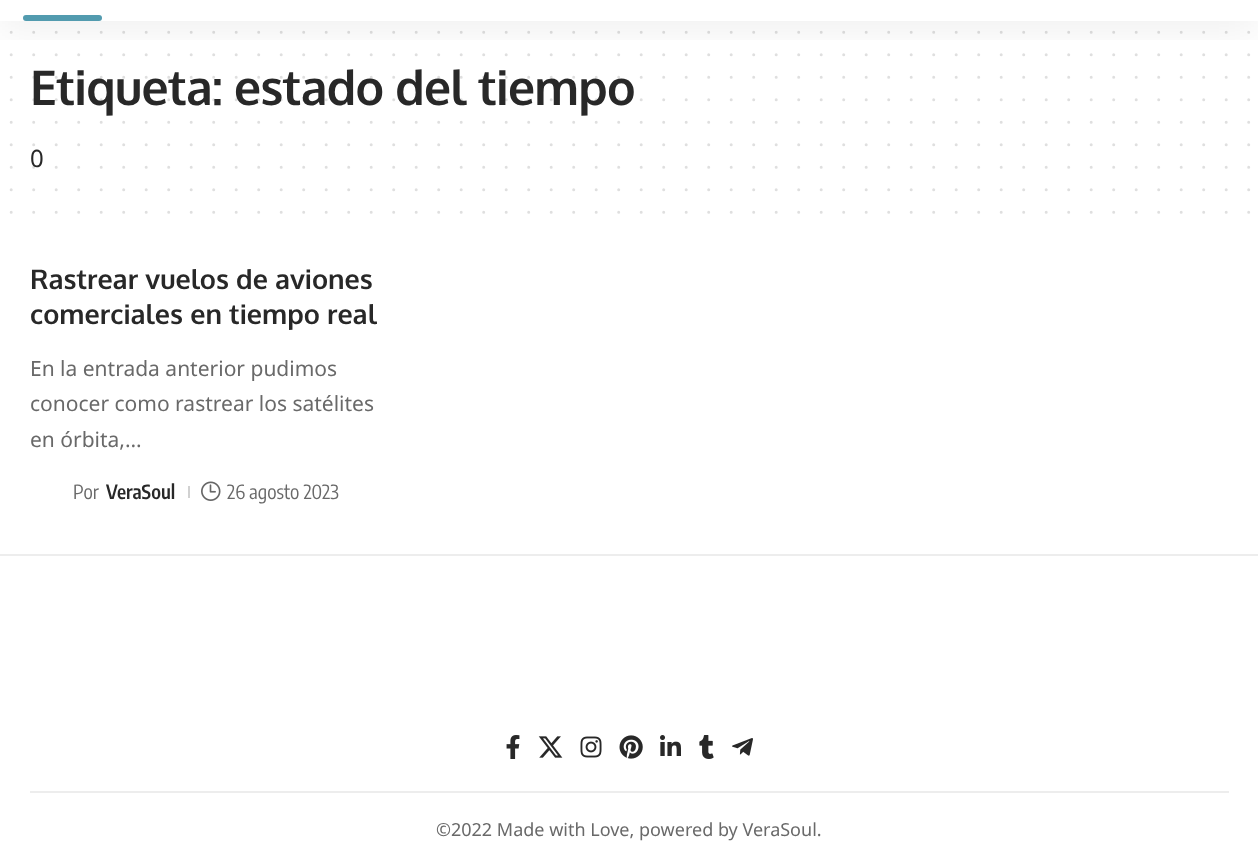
<!DOCTYPE html>
<meta charset="utf-8">
<style>body { margin: 0 } canvas { display: block }</style>
<canvas id="canvas" width="1258" height="852"></canvas>
<script type="module">
  const canvas = document.getElementById("canvas");
  const ctx = canvas.getContext("2d");
  ctx.miterLimit = 4;
  ctx.fontKerning = "normal";
  async function loadImage(src) {
    const img = new Image();
    img.src = src;
    await img.decode();
    return img;
  }

  ctx.fillStyle = "#ffffff";
  ctx.fillRect(0, 0, 1258, 852);
  ctx.beginPath();
  ctx.moveTo(11.2, 32.2);
  ctx.lineTo(1249.1, 32.2);
  ctx.strokeStyle = "#dfdfdf";
  ctx.lineWidth = 3;
  ctx.lineCap = "round";
  ctx.setLineDash([0, 22.5]);
  ctx.stroke();
  ctx.beginPath();
  ctx.moveTo(11.2, 54.8);
  ctx.lineTo(1249.1, 54.8);
  ctx.stroke();
  ctx.letterSpacing = "-0.75px";
  ctx.font = "bold 48px Oxygen";
  ctx.fillStyle = "#282828";
  ctx.fillText("Etiqueta: estado del tiempo", 30, 105);
  ctx.beginPath();
  ctx.moveTo(11.2, 77.2);
  ctx.lineTo(1249.1, 77.2);
  ctx.strokeStyle = "rgba(40, 40, 40, 0.15)";
  ctx.stroke();
  ctx.save();
  ctx.beginPath();
  ctx.rect(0, 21, 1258, 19);
  ctx.clip();
  ctx.fillStyle = "rgba(0, 0, 0, 0.07)";
  ctx.filter = "blur(22.5px)";
  ctx.beginPath();
  ctx.rect(0, -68, 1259, 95);
  ctx.fill();
  ctx.filter = "none";
  ctx.restore();
  ctx.fillStyle = "#529baf";
  ctx.beginPath();
  ctx.roundRect(23, 15, 79, 6, 3);
  ctx.fill();
  ctx.beginPath();
  ctx.moveTo(11.2, 99.8);
  ctx.lineTo(1249.1, 99.8);
  ctx.stroke();
  ctx.beginPath();
  ctx.moveTo(11.2, 122.2);
  ctx.lineTo(1249.1, 122.2);
  ctx.strokeStyle = "#dfdfdf";
  ctx.stroke();
  ctx.beginPath();
  ctx.moveTo(11.2, 144.8);
  ctx.lineTo(1249.1, 144.8);
  ctx.stroke();
  ctx.letterSpacing = "0px";
  ctx.font = "24px Noto Sans";
  ctx.fillStyle = "#282828";
  ctx.fillText("0", 30, 167);
  ctx.beginPath();
  ctx.moveTo(11.2, 167.2);
  ctx.lineTo(1249.1, 167.2);
  ctx.strokeStyle = "rgba(40, 40, 40, 0.15)";
  ctx.stroke();
  ctx.beginPath();
  ctx.moveTo(11.2, 189.8);
  ctx.lineTo(1249.1, 189.8);
  ctx.strokeStyle = "#dfdfdf";
  ctx.stroke();
  ctx.beginPath();
  ctx.moveTo(11.2, 212.2);
  ctx.lineTo(1249.1, 212.2);
  ctx.stroke();
  ctx.font = "bold 27px Oxygen";
  ctx.fillText("Rastrear vuelos de aviones", 30, 289);
  ctx.fillText("comerciales en tiempo real", 30, 324);
  ctx.font = "21px Noto Sans";
  ctx.fillStyle = "#696969";
  ctx.fillText("En la entrada anterior pudimos", 30, 376);
  ctx.fillText("conocer como rastrear los satélites", 30, 411);
  ctx.fillText("en órbita,…", 30, 447);
  ctx.font = "19.5px Encode Sans Condensed";
  ctx.fillText("Por", 73, 499);
  ctx.font = "600 19.5px Encode Sans Condensed";
  ctx.fillStyle = "#282828";
  ctx.fillText("VeraSoul", 106, 499);
  ctx.fillStyle = "#d1d1d1";
  ctx.fillRect(188, 486, 2, 12);
  ctx.drawImage(await loadImage("img1.png"), 201, 481, 20, 20);
  ctx.font = "19.5px Encode Sans Condensed";
  ctx.fillStyle = "#696969";
  ctx.fillText("26 agosto 2023", 227, 499);
  ctx.fillStyle = "#ededed";
  ctx.fillRect(0, 554, 1258, 2);
  ctx.drawImage(await loadImage("img2.png"), 506, 735, 14, 24);
  ctx.drawImage(await loadImage("img3.png"), 538, 736, 25, 22);
  ctx.drawImage(await loadImage("img4.png"), 580, 736, 22, 22);
  ctx.drawImage(await loadImage("img5.png"), 619, 735, 24, 24);
  ctx.drawImage(await loadImage("img6.png"), 660, 735, 21, 21);
  ctx.drawImage(await loadImage("img7.png"), 699, 735, 15, 24);
  ctx.drawImage(await loadImage("img8.png"), 732, 738, 21, 18);
  ctx.fillRect(30, 791, 1199, 2);
  ctx.font = "18px Noto Sans";
  ctx.fillStyle = "#696969";
  ctx.fillText("©2022 Made with Love, powered by VeraSoul.", 436, 836);
</script>
